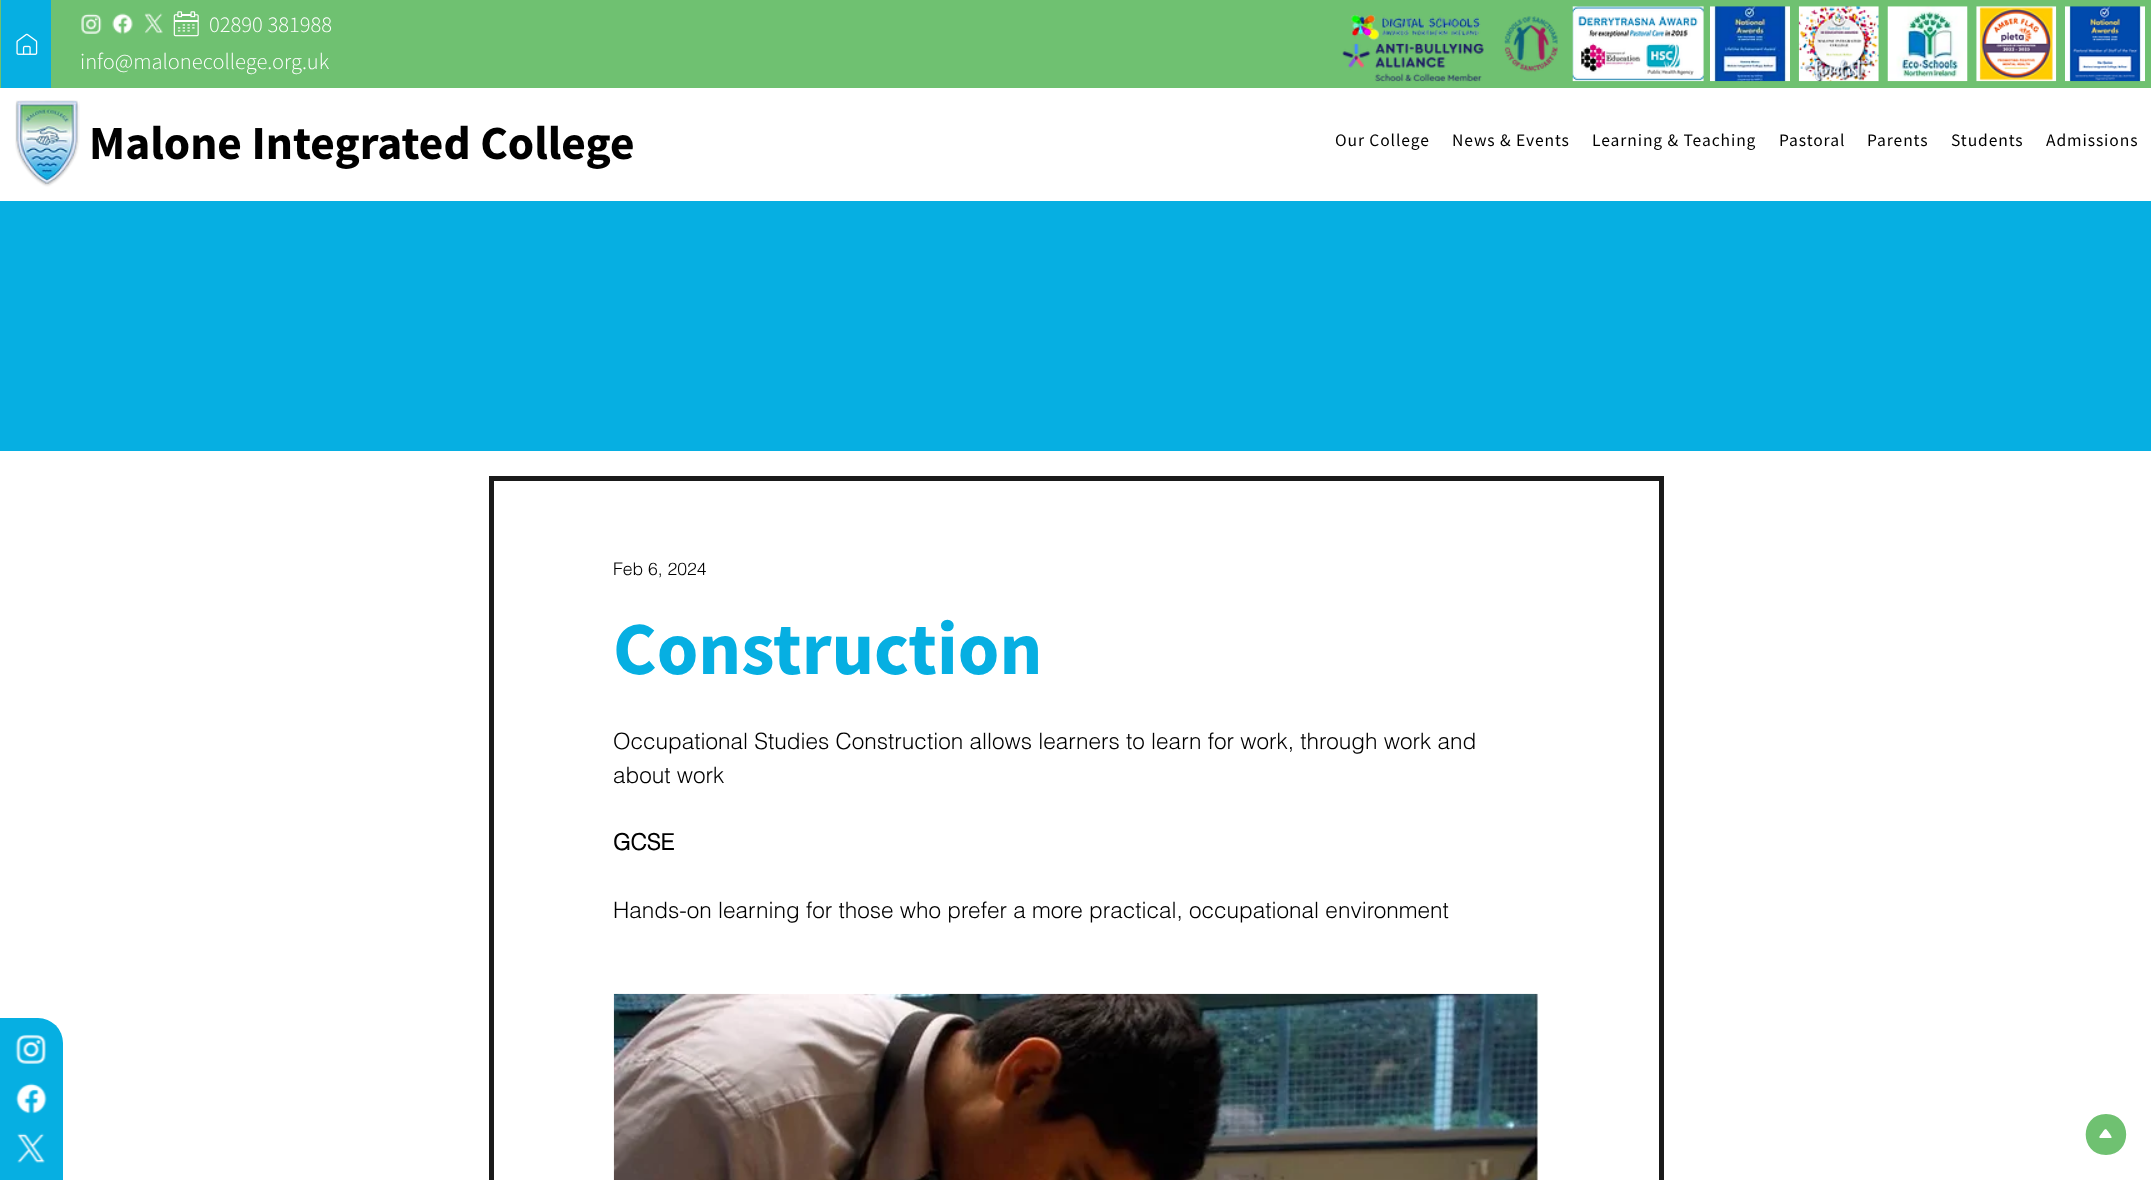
<!DOCTYPE html>
<meta charset="utf-8">
<style>body { margin: 0 } canvas { display: block }</style>
<canvas id="canvas" width="2151" height="1180"></canvas>
<script type="module">
  const canvas = document.getElementById("canvas");
  const ctx = canvas.getContext("2d");
  ctx.miterLimit = 4;
  ctx.fontKerning = "normal";
  async function loadImage(src) {
    const img = new Image();
    img.src = src;
    await img.decode();
    return img;
  }

  ctx.fillStyle = "#ffffff";
  ctx.fillRect(0, 0, 2151, 1180);
  ctx.fillStyle = "#6fc171";
  ctx.fillRect(0, 0, 2151, 88);
  ctx.fillStyle = "#06afe2";
  ctx.fillRect(1, 0, 50, 88);
  ctx.drawImage(await loadImage("img1.png"), 16, 33, 22, 22);
  ctx.drawImage(await loadImage("img2.png"), 81, 13, 21, 21);
  ctx.drawImage(await loadImage("img3.png"), 112, 13, 21, 21);
  ctx.drawImage(await loadImage("img4.png"), 144, 13, 19, 21);
  ctx.drawImage(await loadImage("img5.png"), 173, 11, 26, 26);
  ctx.font = "300 22.5px Mada";
  ctx.fillStyle = "#ffffff";
  ctx.fillText("02890 381988", 209, 32);
  ctx.fillText("info@malonecollege.org.uk", 80, 69);
  ctx.drawImage(await loadImage("img6.png"), 1351, 14, 130, 27);
  ctx.drawImage(await loadImage("img7.png"), 1504, 16, 54, 56);
  ctx.drawImage(await loadImage("img8.png"), 1572, 6, 132, 76);
  ctx.drawImage(await loadImage("img9.png"), 1710, 6, 80, 76);
  ctx.drawImage(await loadImage("img10.png"), 1798, 6, 81, 76);
  ctx.drawImage(await loadImage("img11.png"), 1887, 6, 81, 76);
  ctx.drawImage(await loadImage("img12.png"), 1976, 6, 81, 76);
  ctx.drawImage(await loadImage("img13.png"), 2065, 6, 80, 76);
  ctx.drawImage(await loadImage("img14.png"), 1342, 43, 142, 39);
  ctx.drawImage(await loadImage("img15.png"), 15, 100, 65, 87);
  ctx.font = "bold 47.5px Mada";
  ctx.fillStyle = "#000000";
  ctx.fillText("Malone Integrated College", 89, 159);
  ctx.letterSpacing = "0.9px";
  ctx.font = "17.5px Mada";
  ctx.fillText("Our College", 1335, 146);
  ctx.fillText("News & Events", 1452, 146);
  ctx.fillText("Learning & Teaching", 1592, 146);
  ctx.fillText("Pastoral", 1779, 146);
  ctx.fillText("Parents", 1867, 146);
  ctx.fillText("Students", 1951, 146);
  ctx.fillText("Admissions", 2046, 146);
  ctx.fillStyle = "#06afe2";
  ctx.fillRect(0, 201, 2151, 250);
  ctx.strokeStyle = "#1a1a1a";
  ctx.lineWidth = 5;
  ctx.strokeRect(491.5, 478.5, 1170, 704);
  ctx.letterSpacing = "0px";
  ctx.font = "300 17.5px helvetica";
  ctx.fillStyle = "#000000";
  ctx.fillText("Feb 6, 2024", 613, 575);
  ctx.font = "bold 75px Mada";
  ctx.fillStyle = "#06afe2";
  ctx.fillText("Construction", 613, 674);
  ctx.font = "300 22.5px helvetica";
  ctx.fillStyle = "#000000";
  ctx.fillText("Occupational Studies Construction allows learners to learn for work, through work and", 613, 749);
  ctx.fillText("about work", 613, 783);
  ctx.font = "bold 22.5px helvetica";
  ctx.fillText("GCSE", 613, 850);
  ctx.font = "300 22.5px helvetica";
  ctx.fillText("Hands-on learning for those who prefer a more practical, occupational environment", 613, 918);
  ctx.drawImage(await loadImage("img16.png"), 613, 993, 926, 187);
  ctx.fillStyle = "#06afe2";
  ctx.beginPath();
  ctx.roundRect(0, 1018, 63, 162, [0, 25, 0, 0]);
  ctx.fill();
  ctx.drawImage(await loadImage("img17.png"), 15, 1034, 31, 30);
  ctx.drawImage(await loadImage("img18.png"), 15, 1083, 32, 31);
  ctx.drawImage(await loadImage("img19.png"), 17, 1133, 28, 30);
  ctx.fillStyle = "#6fc171";
  ctx.beginPath();
  ctx.moveTo(2106, 1114);
  ctx.bezierCurveTo(2079, 1114, 2079, 1155, 2106, 1155);
  ctx.bezierCurveTo(2133, 1155, 2133, 1114, 2106, 1114);
  ctx.closePath();
  ctx.moveTo(2111, 1138);
  ctx.lineTo(2102, 1138);
  ctx.bezierCurveTo(2097, 1138, 2100, 1136, 2102, 1133);
  ctx.bezierCurveTo(2103, 1132, 2104, 1129, 2106, 1129);
  ctx.bezierCurveTo(2106, 1129, 2114, 1138, 2111, 1138);
  ctx.closePath();
  ctx.fill();
</script>
